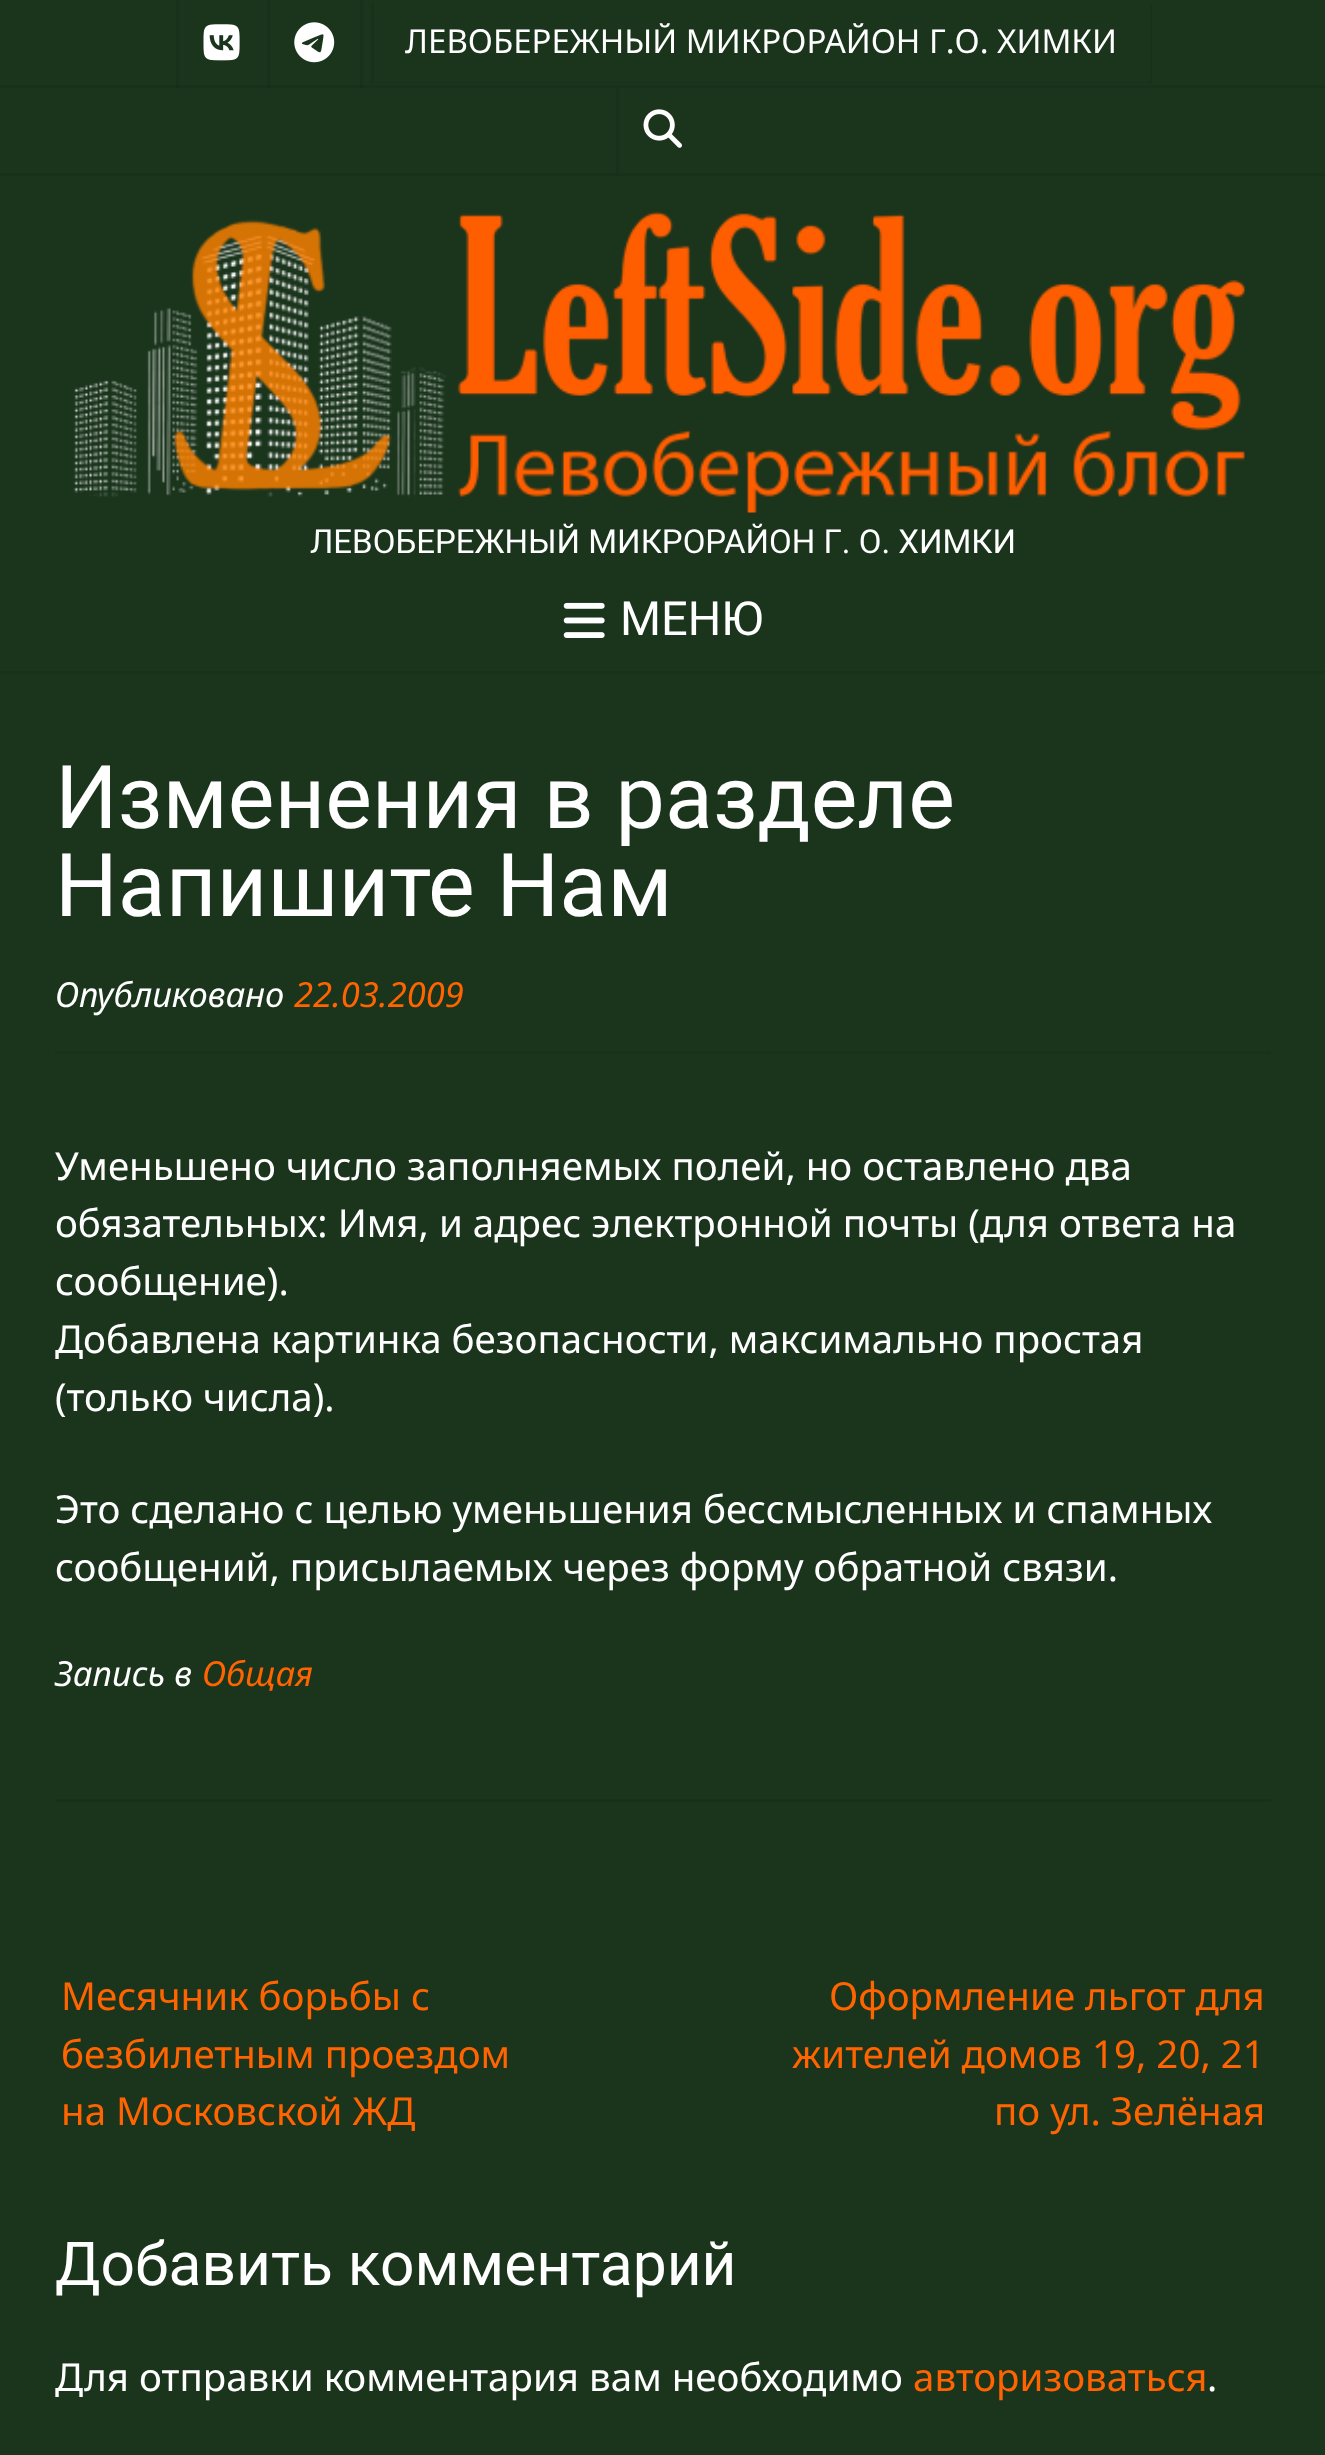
<!DOCTYPE html>
<meta charset="utf-8">
<style>body { margin: 0 } canvas { display: block }</style>
<canvas id="canvas" width="1325" height="2455"></canvas>
<script type="module">
  const canvas = document.getElementById("canvas");
  const ctx = canvas.getContext("2d");
  ctx.miterLimit = 4;
  ctx.fontKerning = "normal";
  async function loadImage(src) {
    const img = new Image();
    img.src = src;
    await img.decode();
    return img;
  }

  ctx.fillStyle = "#1b351d";
  ctx.fillRect(0, 0, 1325, 2455);
  ctx.fillStyle = "#19311b";
  ctx.fillRect(360, 0, 3, 88);
  ctx.fillRect(267, 0, 3, 88);
  ctx.fillRect(176, 0, 3, 88);
  ctx.fillRect(0, 173, 1325, 3);
  ctx.fillRect(0, 85, 1325, 3);
  ctx.fillStyle = "#172d19";
  ctx.fillRect(360, 85, 3, 3);
  ctx.fillRect(267, 85, 3, 3);
  ctx.fillRect(176, 85, 3, 3);
  ctx.drawImage(await loadImage("img1.png"), 203, 24, 37, 37);
  ctx.drawImage(await loadImage("img2.png"), 294, 22, 41, 41);
  ctx.fillStyle = "#19311b";
  ctx.beginPath();
  ctx.moveTo(374, 82);
  ctx.lineTo(374, 83);
  ctx.lineTo(1152, 83);
  ctx.lineTo(1152, 3);
  ctx.lineTo(1150, 3);
  ctx.lineTo(1150, 82);
  ctx.closePath();
  ctx.fill();
  ctx.fillRect(371, 3, 3, 80);
  ctx.font = "33px Noto Sans";
  ctx.fillStyle = "#ffffff";
  ctx.fillText("ЛЕВОБЕРЕЖНЫЙ МИКРОРАЙОН Г.О. ХИМКИ", 405, 53);
  ctx.fillStyle = "#19311b";
  ctx.fillRect(616, 88, 3, 85);
  ctx.drawImage(await loadImage("img3.png"), 643, 109, 39, 39);
  ctx.beginPath();
  ctx.moveTo(0, 671);
  ctx.lineTo(0, 674);
  ctx.lineTo(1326, 674);
  ctx.lineTo(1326, 179);
  ctx.lineTo(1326, 671);
  ctx.closePath();
  ctx.fill();
  ctx.drawImage(await loadImage("img4.png"), 73, 211, 1172, 302);
  ctx.font = "33px Roboto";
  ctx.fillStyle = "#ffffff";
  ctx.fillText("ЛЕВОБЕРЕЖНЫЙ МИКРОРАЙОН Г. О. ХИМКИ", 310, 553);
  ctx.drawImage(await loadImage("img5.png"), 563, 602, 42, 36);
  ctx.font = "47px Roboto";
  ctx.fillText("МЕНЮ", 620, 635);
  ctx.fillStyle = "#18301a";
  ctx.fillRect(55, 1799, 1216, 3);
  ctx.fillStyle = "#19311b";
  ctx.fillRect(55, 1051, 1216, 3);
  ctx.font = "88px Roboto";
  ctx.fillStyle = "#ffffff";
  ctx.fillText("Изменения в разделе", 55, 828);
  ctx.fillText("Напишите Нам", 55, 916);
  ctx.font = "italic 34.5px Noto Sans";
  ctx.fillText("Опубликовано", 55, 1007);
  ctx.fillStyle = "#ff6400";
  ctx.fillText("22.03.2009", 294, 1007);
  ctx.font = "38.5px Noto Sans";
  ctx.fillStyle = "#ffffff";
  ctx.fillText("Уменьшено число заполняемых полей, но оставлено два", 55, 1180);
  ctx.fillText("обязательных: Имя, и адрес электронной почты (для ответа на", 55, 1237);
  ctx.fillText("сообщение).", 55, 1295);
  ctx.fillText("Добавлена картинка безопасности, максимально простая", 55, 1353);
  ctx.fillText("(только числа).", 55, 1411);
  ctx.fillText("Это сделано с целью уменьшения бессмысленных и спамных", 55, 1523);
  ctx.fillText("сообщений, присылаемых через форму обратной связи.", 55, 1581);
  ctx.font = "italic 34.5px Noto Sans";
  ctx.fillText("Запись в", 55, 1686);
  ctx.fillStyle = "#ff6400";
  ctx.fillText("Общая", 202, 1686);
  ctx.font = "38.5px Noto Sans";
  ctx.fillText("Месячник борьбы с", 61, 2010);
  ctx.fillText("безбилетным проездом", 61, 2068);
  ctx.fillText("на Московской ЖД", 61, 2125);
  ctx.fillText("Оформление льгот для", 829, 2010);
  ctx.fillText("жителей домов 19, 20, 21", 792, 2068);
  ctx.fillText("по ул. Зелёная", 994, 2125);
  ctx.font = "60.5px Roboto";
  ctx.fillStyle = "#ffffff";
  ctx.fillText("Добавить комментарий", 55, 2285);
  ctx.font = "38.5px Noto Sans";
  ctx.fillText("Для отправки комментария вам необходимо", 55, 2391);
  ctx.fillStyle = "#ff6400";
  ctx.fillText("авторизоваться", 913, 2391);
  ctx.fillStyle = "#ffffff";
  ctx.fillText(".", 1207, 2391);
</script>
